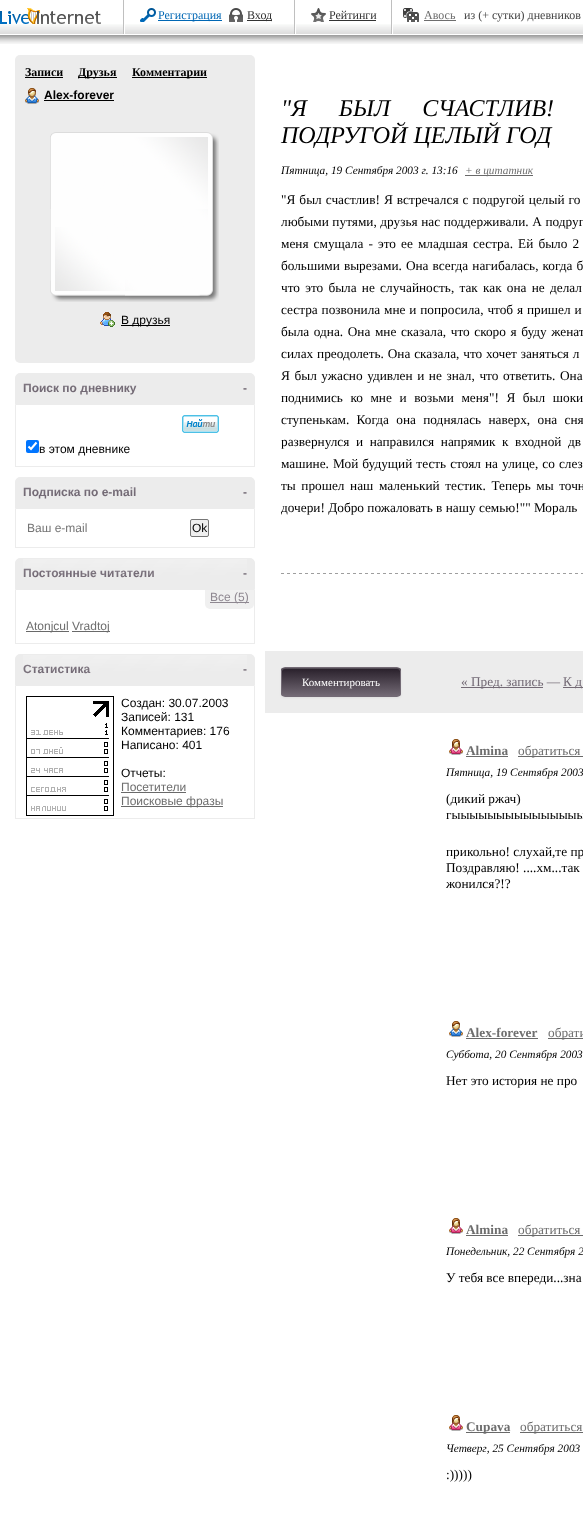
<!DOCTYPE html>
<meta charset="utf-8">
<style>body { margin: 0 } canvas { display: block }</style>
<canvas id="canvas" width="583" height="1516"></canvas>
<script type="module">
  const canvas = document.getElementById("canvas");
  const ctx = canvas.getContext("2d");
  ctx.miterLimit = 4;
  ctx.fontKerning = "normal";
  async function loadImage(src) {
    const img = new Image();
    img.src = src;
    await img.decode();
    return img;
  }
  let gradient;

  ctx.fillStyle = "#ffffff";
  ctx.fillRect(0, 0, 583, 1516);
  ctx.drawImage(await loadImage("img1.png"), 0, 24, 583, 20);
  ctx.drawImage(await loadImage("img2.png"), 0, 8, 101, 16);
  ctx.drawImage(await loadImage("img3.png"), 123, 0, 2, 34);
  ctx.drawImage(await loadImage("img4.png"), 140, 8, 16, 14);
  ctx.fillStyle = "#0067b4";
  ctx.fillRect(158, 20, 64, 1);
  ctx.font = "12px Liberation Serif";
  ctx.fillText("Регистрация", 158, 19);
  ctx.drawImage(await loadImage("img5.png"), 229, 8, 14, 14);
  ctx.fillStyle = "#333333";
  ctx.fillRect(247, 20, 25, 1);
  ctx.fillText("Вход", 247, 19);
  ctx.drawImage(await loadImage("img3.png"), 294, 0, 2, 34);
  ctx.drawImage(await loadImage("img6.png"), 311, 8, 15, 14);
  ctx.fillText("Рейтинги", 329, 19);
  ctx.fillRect(329, 20, 47, 1);
  ctx.drawImage(await loadImage("img3.png"), 391, 0, 2, 34);
  ctx.drawImage(await loadImage("img7.png"), 403, 8, 16, 14);
  ctx.fillStyle = "#6e6e6e";
  ctx.fillText("Авось", 424, 19);
  ctx.fillRect(424, 20, 32, 1);
  ctx.fillStyle = "#444444";
  ctx.fillText("из (+ сутки) дневников", 464, 19);
  ctx.fillStyle = "#ececec";
  ctx.beginPath();
  ctx.roundRect(15, 55, 240, 308, 5);
  ctx.fill();
  ctx.font = "bold 12px Liberation Serif";
  ctx.fillStyle = "#000000";
  ctx.fillText("Записи", 25, 76);
  ctx.fillRect(25, 77, 38, 1);
  ctx.fillRect(78, 77, 39, 1);
  ctx.fillText("Друзья", 78, 76);
  ctx.fillRect(132, 77, 75, 1);
  ctx.fillText("Комментарии", 132, 76);
  ctx.drawImage(await loadImage("img8.png"), 25, 88, 14, 16);
  ctx.font = "bold 12px Liberation Sans";
  ctx.fillText("Alex-forever", 44, 99);
  ctx.fillRect(44, 100, 70, 1);
  ctx.drawImage(await loadImage("img9.png"), 50, 132, 169, 170);
  ctx.drawImage(await loadImage("img10.png"), 100, 312, 15, 15);
  ctx.fillRect(121, 325, 49, 1);
  ctx.font = "12px Liberation Sans";
  ctx.fillText("В друзья", 121, 324);
  ctx.fillStyle = "#ececec";
  ctx.beginPath();
  ctx.roundRect(15.5, 373.5, 239, 31, [4.5, 4.5, 0, 0]);
  ctx.fill();
  ctx.strokeStyle = "#ececec";
  ctx.stroke();
  ctx.font = "bold 12px Liberation Sans";
  ctx.fillStyle = "#736a75";
  ctx.fillText("Поиск по дневнику", 23, 392);
  ctx.fillText("-", 243, 392);
  ctx.drawImage(await loadImage("img11.png"), 24, 383, 112, 5);
  ctx.fillStyle = "#ececec";
  ctx.fillRect(254, 405, 1, 62);
  ctx.fillRect(15, 466, 240, 1);
  ctx.fillRect(15, 405, 1, 62);
  ctx.drawImage(await loadImage("img12.png"), 182, 415, 37, 18);
  ctx.fillStyle = "#0075ff";
  ctx.beginPath();
  ctx.roundRect(26, 440, 13, 13, 2);
  ctx.fill();
  ctx.beginPath();
  ctx.moveTo(28.5, 446.5);
  ctx.lineTo(31, 449);
  ctx.lineTo(36.5, 442.5);
  ctx.strokeStyle = "#ffffff";
  ctx.lineWidth = 2.1;
  ctx.stroke();
  ctx.font = "12px Liberation Sans";
  ctx.fillStyle = "#000000";
  ctx.fillText("в этом дневнике", 39, 453);
  ctx.fillStyle = "#ececec";
  ctx.beginPath();
  ctx.roundRect(15.5, 477.5, 239, 31, [4.5, 4.5, 0, 0]);
  ctx.fill();
  ctx.strokeStyle = "#ececec";
  ctx.lineWidth = 1;
  ctx.stroke();
  ctx.font = "bold 12px Liberation Sans";
  ctx.fillStyle = "#736a75";
  ctx.fillText("Подписка по e-mail", 23, 496);
  ctx.fillText("-", 243, 496);
  ctx.drawImage(await loadImage("img13.png"), 24, 487, 112, 5);
  ctx.fillStyle = "#ececec";
  ctx.fillRect(254, 509, 1, 39);
  ctx.fillRect(15, 547, 240, 1);
  ctx.fillRect(15, 509, 1, 39);
  ctx.font = "12px Liberation Sans";
  ctx.fillStyle = "#757575";
  ctx.fillText("Ваш e-mail", 27, 532);
  ctx.fillStyle = "#efefef";
  ctx.beginPath();
  ctx.roundRect(190.5, 519.5, 18, 17, 1.5);
  ctx.fill();
  ctx.strokeStyle = "#767676";
  ctx.stroke();
  ctx.fillStyle = "#000000";
  ctx.fillText("Ok", 192, 532);
  ctx.fillStyle = "#ececec";
  ctx.beginPath();
  ctx.roundRect(15.5, 558.5, 239, 31, [4.5, 4.5, 0, 0]);
  ctx.fill();
  ctx.strokeStyle = "#ececec";
  ctx.stroke();
  ctx.font = "bold 12px Liberation Sans";
  ctx.fillStyle = "#736a75";
  ctx.fillText("Постоянные читатели", 23, 577);
  ctx.fillText("-", 243, 577);
  ctx.drawImage(await loadImage("img14.png"), 23, 559, 224, 18);
  ctx.fillStyle = "#ececec";
  ctx.fillRect(254, 590, 1, 54);
  ctx.fillRect(15, 643, 240, 1);
  ctx.fillRect(15, 590, 1, 54);
  ctx.fillStyle = "#f0f0f0";
  ctx.beginPath();
  ctx.roundRect(205, 590, 49, 19, [0, 0, 5, 5]);
  ctx.fill();
  ctx.fillStyle = "#8f8891";
  ctx.fillRect(210, 602, 39, 1);
  ctx.font = "12px Liberation Sans";
  ctx.fillText("Все (5)", 210, 601);
  ctx.fillStyle = "#696969";
  ctx.fillRect(26, 631, 43, 1);
  ctx.fillStyle = "#6e6e6e";
  ctx.fillText("Atonjcul", 26, 630);
  ctx.fillStyle = "#696969";
  ctx.fillRect(72, 631, 38, 1);
  ctx.fillStyle = "#6e6e6e";
  ctx.fillText("Vradtoj", 72, 630);
  ctx.fillStyle = "#ececec";
  ctx.beginPath();
  ctx.roundRect(15.5, 654.5, 239, 31, [4.5, 4.5, 0, 0]);
  ctx.fill();
  ctx.stroke();
  ctx.font = "bold 12px Liberation Sans";
  ctx.fillStyle = "#736a75";
  ctx.fillText("Статистика", 23, 673);
  ctx.fillText("-", 243, 673);
  ctx.drawImage(await loadImage("img15.png"), 23, 655, 224, 18);
  ctx.fillStyle = "#ececec";
  ctx.fillRect(254, 686, 1, 133);
  ctx.fillRect(15, 818, 240, 1);
  ctx.fillRect(15, 686, 1, 133);
  ctx.drawImage(await loadImage("img16.png"), 26, 696, 88, 120);
  ctx.font = "12px Liberation Sans";
  ctx.fillStyle = "#000000";
  ctx.fillText("Создан: 30.07.2003", 121, 707);
  ctx.fillText("Записей: 131", 121, 721);
  ctx.fillText("Комментариев: 176", 121, 735);
  ctx.fillText("Написано: 401", 121, 749);
  ctx.fillText("Отчеты:", 121, 777);
  ctx.fillStyle = "#6e6e6e";
  ctx.fillText("Посетители", 121, 791);
  ctx.fillStyle = "#696969";
  ctx.fillRect(121, 792, 65, 1);
  ctx.fillRect(121, 806, 102, 1);
  ctx.fillStyle = "#6e6e6e";
  ctx.fillText("Поисковые фразы", 121, 805);
  ctx.wordSpacing = "26px";
  ctx.font = "italic 24px Liberation Serif";
  ctx.fillStyle = "#000000";
  ctx.fillText("\"Я БЫЛ СЧАСТЛИВ!", 281, 116);
  ctx.wordSpacing = "0px";
  ctx.fillText("ПОДРУГОЙ ЦЕЛЫЙ ГОД", 281, 143);
  ctx.font = "italic 11.3px Liberation Serif";
  ctx.fillText("Пятница, 19 Сентября 2003 г. 13:16", 281, 174);
  ctx.fillStyle = "#696969";
  ctx.fillRect(465, 175, 68, 1);
  ctx.fillStyle = "#6e6e6e";
  ctx.fillText("+ в цитатник", 465, 174);
  ctx.drawImage(await loadImage("img17.png"), 281, 573, 302, 1);
  ctx.wordSpacing = "0.75px";
  ctx.font = "13.3px Liberation Serif";
  ctx.fillStyle = "#000000";
  ctx.fillText("\"Я был счастлив! Я встречался с подругой целый го", 281, 204);
  ctx.wordSpacing = "0.25px";
  ctx.fillText("любыми путями, друзья нас поддерживали. А подруг", 281, 226);
  ctx.wordSpacing = "1.75px";
  ctx.fillText("меня смущала - это ее младшая сестра. Ей было 2", 281, 248);
  ctx.wordSpacing = "0.75px";
  ctx.fillText("большими вырезами. Она всегда нагибалась, когда б", 281, 270);
  ctx.wordSpacing = "1.9px";
  ctx.fillText("что это была не случайность, так как она не делал", 281, 292);
  ctx.wordSpacing = "0.5px";
  ctx.fillText("сестра позвонила мне и попросила, чтоб я пришел и", 281, 314);
  ctx.wordSpacing = "1.25px";
  ctx.fillText("была одна. Она мне сказала, что скоро я буду женат", 281, 336);
  ctx.wordSpacing = "0.5px";
  ctx.fillText("силах преодолеть. Она сказала, что хочет заняться л", 281, 358);
  ctx.wordSpacing = "1.25px";
  ctx.fillText("Я был ужасно удивлен и не знал, что ответить. Она", 281, 380);
  ctx.wordSpacing = "4.25px";
  ctx.fillText("поднимись ко мне и возьми меня\"! Я был шоки", 281, 402);
  ctx.wordSpacing = "4px";
  ctx.fillText("ступенькам. Когда она поднялась наверх, она сня", 281, 424);
  ctx.wordSpacing = "3.25px";
  ctx.fillText("развернулся и направился напрямик к входной дв", 281, 446);
  ctx.wordSpacing = "0.75px";
  ctx.fillText("машине. Мой будущий тесть стоял на улице, со слез", 281, 468);
  ctx.wordSpacing = "2.25px";
  ctx.fillText("ты прошел наш маленький тестик. Теперь мы точн", 281, 490);
  ctx.wordSpacing = "0px";
  ctx.fillText("дочери! Добро пожаловать в нашу семью!\"\" Мораль", 281, 512);
  ctx.fillStyle = "#ececec";
  ctx.fillRect(265, 651, 318, 62);
  ctx.fillStyle = "rgba(0, 0, 0, 0.05)";
  ctx.filter = "blur(1px)";
  ctx.beginPath();
  ctx.roundRect(281, 668, 120, 30, 4);
  ctx.fill();
  ctx.filter = "none";
  ctx.save();
  ctx.beginPath();
  ctx.roundRect(281, 667, 120, 30, 4);
  ctx.clip();
  gradient = ctx.createLinearGradient(341, 668, 341, 696);
  gradient.addColorStop(0, "#281f2a");
  gradient.addColorStop(1, "#736a75");
  ctx.fillStyle = gradient;
  ctx.fillRect(281, 668, 120, 28);
  ctx.restore();
  ctx.fillStyle = "rgba(255, 255, 255, 0.2)";
  ctx.beginPath();
  ctx.moveTo(285, 669);
  ctx.lineTo(397, 669);
  ctx.bezierCurveTo(399, 669, 400, 670, 400, 672);
  ctx.bezierCurveTo(400, 670, 399, 668, 397, 668);
  ctx.lineTo(304, 668);
  ctx.bezierCurveTo(302, 668, 282, 663, 282, 672);
  ctx.bezierCurveTo(282, 670, 283, 669, 285, 669);
  ctx.closePath();
  ctx.fill();
  ctx.beginPath();
  ctx.roundRect(281.5, 667.5, 119, 29, 3.5);
  ctx.strokeStyle = "#736a75";
  ctx.stroke();
  ctx.font = "11px Liberation Serif";
  ctx.fillStyle = "#ffffff";
  ctx.fillText("Комментировать", 302, 686);
  ctx.fillStyle = "#736a75";
  ctx.fillRect(461, 687, 82, 1);
  ctx.font = "13.3px Liberation Serif";
  ctx.fillText("« Пред. запись —", 461, 686);
  ctx.fillRect(563, 687, 20, 1);
  ctx.fillText("К д", 563, 686);
  ctx.drawImage(await loadImage("img18.png"), 449, 739, 14, 16);
  ctx.font = "bold 13.3px Liberation Serif";
  ctx.fillStyle = "#6e6e6e";
  ctx.fillText("Almina", 466, 755);
  ctx.fillStyle = "#696969";
  ctx.fillRect(466, 756, 42, 1);
  ctx.fillRect(518, 756, 65, 1);
  ctx.font = "13.3px Liberation Serif";
  ctx.fillStyle = "#6e6e6e";
  ctx.fillText("обратиться", 518, 755);
  ctx.font = "italic 11.3px Liberation Serif";
  ctx.fillStyle = "#000000";
  ctx.fillText("Пятница, 19 Сентября 2003", 446, 776);
  ctx.font = "13.3px Liberation Serif";
  ctx.fillText("(дикий ржач)", 446, 803);
  ctx.fillText("гыыыыыыыыыыыыыыы", 446, 819);
  ctx.fillText("прикольно! слухай,те пр", 446, 856);
  ctx.fillText("Поздравляю! ....хм...так", 446, 872);
  ctx.fillText("жонился?!?", 446, 888);
  ctx.drawImage(await loadImage("img19.png"), 449, 1021, 14, 16);
  ctx.font = "bold 13.3px Liberation Serif";
  ctx.fillStyle = "#6e6e6e";
  ctx.fillText("Alex-forever", 466, 1037);
  ctx.fillStyle = "#696969";
  ctx.fillRect(466, 1038, 72, 1);
  ctx.fillRect(548, 1038, 35, 1);
  ctx.font = "13.3px Liberation Serif";
  ctx.fillStyle = "#6e6e6e";
  ctx.fillText("обрати", 548, 1037);
  ctx.font = "italic 11.3px Liberation Serif";
  ctx.fillStyle = "#000000";
  ctx.fillText("Суббота, 20 Сентября 2003", 446, 1058);
  ctx.font = "13.3px Liberation Serif";
  ctx.fillText("Нет это история не про", 446, 1085);
  ctx.drawImage(await loadImage("img18.png"), 449, 1218, 14, 16);
  ctx.font = "bold 13.3px Liberation Serif";
  ctx.fillStyle = "#6e6e6e";
  ctx.fillText("Almina", 466, 1234);
  ctx.fillStyle = "#696969";
  ctx.fillRect(466, 1235, 42, 1);
  ctx.fillRect(518, 1235, 65, 1);
  ctx.font = "13.3px Liberation Serif";
  ctx.fillStyle = "#6e6e6e";
  ctx.fillText("обратиться", 518, 1234);
  ctx.font = "italic 11.3px Liberation Serif";
  ctx.fillStyle = "#000000";
  ctx.fillText("Понедельник, 22 Сентября 2", 446, 1255);
  ctx.font = "13.3px Liberation Serif";
  ctx.fillText("У тебя все впереди...зна", 446, 1282);
  ctx.drawImage(await loadImage("img18.png"), 449, 1415, 14, 16);
  ctx.fillStyle = "#696969";
  ctx.fillRect(466, 1432, 44, 1);
  ctx.font = "bold 13.3px Liberation Serif";
  ctx.fillStyle = "#6e6e6e";
  ctx.fillText("Cupava", 466, 1431);
  ctx.fillStyle = "#696969";
  ctx.fillRect(520, 1432, 63, 1);
  ctx.font = "13.3px Liberation Serif";
  ctx.fillStyle = "#6e6e6e";
  ctx.fillText("обратиться", 520, 1431);
  ctx.font = "italic 11.3px Liberation Serif";
  ctx.fillStyle = "#000000";
  ctx.fillText("Четверг, 25 Сентября 2003", 446, 1452);
  ctx.font = "13.3px Liberation Serif";
  ctx.fillText(":)))))", 446, 1479);
</script>
